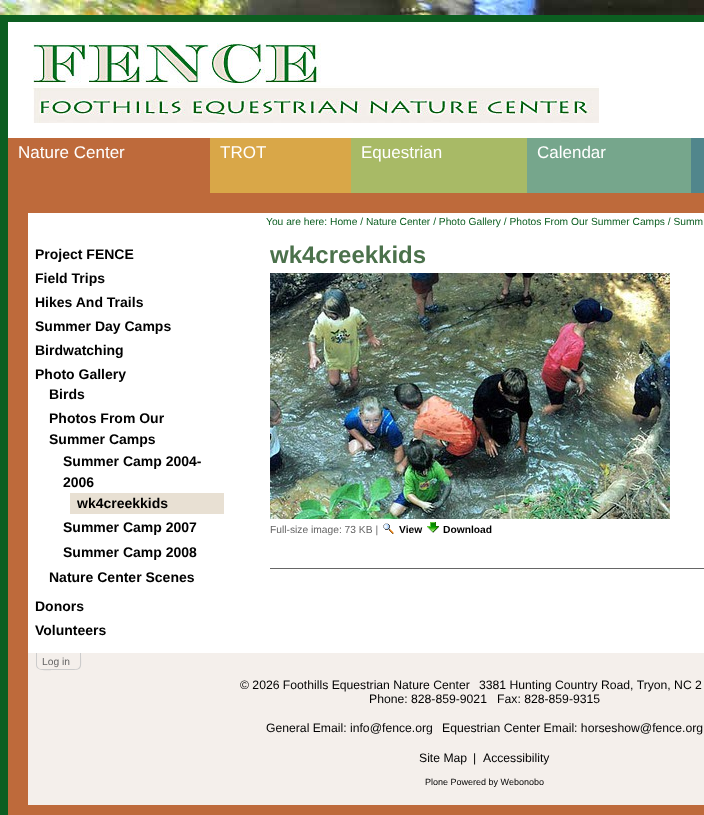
<!DOCTYPE html>
<meta charset="utf-8">
<style>body { margin: 0 } canvas { display: block }</style>
<canvas id="canvas" width="704" height="815"></canvas>
<script type="module">
  const canvas = document.getElementById("canvas");
  const ctx = canvas.getContext("2d");
  ctx.miterLimit = 4;
  ctx.fontKerning = "normal";
  async function loadImage(src) {
    const img = new Image();
    img.src = src;
    await img.decode();
    return img;
  }

  ctx.fillStyle = "#ffffff";
  ctx.fillRect(0, 0, 704, 815);
  ctx.drawImage(await loadImage("img1.png"), 0, 0, 704, 15);
  ctx.beginPath();
  ctx.moveTo(4, 19);
  ctx.lineTo(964, 19);
  ctx.lineTo(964, 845);
  ctx.lineTo(4, 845);
  ctx.closePath();
  ctx.strokeStyle = "#0c5e21";
  ctx.lineWidth = 8;
  ctx.stroke();
  ctx.fillRect(8, 22, 696, 1);
  ctx.drawImage(await loadImage("img2.png"), 33, 43, 566, 80);
  ctx.fillStyle = "#be6a3b";
  ctx.fillRect(8, 138, 202, 55);
  ctx.font = "17px Liberation Sans";
  ctx.fillStyle = "#ffffff";
  ctx.fillText("Nature Center", 18, 158);
  ctx.fillStyle = "#d9a748";
  ctx.fillRect(210, 138, 141, 55);
  ctx.fillStyle = "#ffffff";
  ctx.fillText("TROT", 220, 158);
  ctx.fillStyle = "#a8ba66";
  ctx.fillRect(351, 138, 176, 55);
  ctx.fillStyle = "#ffffff";
  ctx.fillText("Equestrian", 361, 158);
  ctx.fillStyle = "#76a68c";
  ctx.fillRect(527, 138, 164, 55);
  ctx.fillStyle = "#ffffff";
  ctx.fillText("Calendar", 537, 158);
  ctx.fillStyle = "#51868c";
  ctx.fillRect(691, 138, 13, 55);
  ctx.fillStyle = "#be6a3b";
  ctx.fillRect(28, 193, 676, 20);
  ctx.fillRect(8, 193, 20, 622);
  ctx.font = "bold 14px Liberation Sans";
  ctx.fillStyle = "#000000";
  ctx.fillText("Project FENCE", 35, 259);
  ctx.fillText("Field Trips", 35, 283);
  ctx.fillText("Hikes And Trails", 35, 307);
  ctx.fillText("Summer Day Camps", 35, 331);
  ctx.fillText("Birdwatching", 35, 355);
  ctx.fillText("Photo Gallery", 35, 379);
  ctx.fillText("Birds", 49, 399);
  ctx.fillText("Photos From Our", 49, 423);
  ctx.fillText("Summer Camps", 49, 444);
  ctx.fillText("Summer Camp 2004-", 63, 466);
  ctx.fillText("2006", 63, 487);
  ctx.fillStyle = "#e8e0d3";
  ctx.fillRect(70, 493, 154, 21);
  ctx.fillStyle = "#000000";
  ctx.fillText("wk4creekkids", 77, 508);
  ctx.fillText("Summer Camp 2007", 63, 532);
  ctx.fillText("Summer Camp 2008", 63, 557);
  ctx.fillText("Nature Center Scenes", 49, 582);
  ctx.fillText("Donors", 35, 611);
  ctx.fillText("Volunteers", 35, 635);
  ctx.font = "10.25px Liberation Sans";
  ctx.fillStyle = "#0c5e21";
  ctx.fillText("You are here: Home / Nature Center / Photo Gallery / Photos From Our Summer Camps / Summ", 266, 225);
  ctx.font = "bold 24px Liberation Sans";
  ctx.fillStyle = "#4b714b";
  ctx.fillText("wk4creekkids", 270, 263);
  ctx.drawImage(await loadImage("img3.png"), 270, 273, 400, 246);
  ctx.font = "10.25px Liberation Sans";
  ctx.fillStyle = "#666666";
  ctx.fillText("Full-size image: 73 KB |", 270, 533);
  ctx.drawImage(await loadImage("img4.png"), 383, 523, 11, 11);
  ctx.font = "bold 10.25px Liberation Sans";
  ctx.fillStyle = "#000000";
  ctx.fillText("View", 399, 533);
  ctx.drawImage(await loadImage("img5.png"), 427, 522, 12, 11);
  ctx.fillText("Download", 443, 533);
  ctx.fillStyle = "#666666";
  ctx.fillRect(270, 568, 434, 1);
  ctx.fillStyle = "#f4efeb";
  ctx.fillRect(28, 653, 676, 152);
  ctx.fillStyle = "#cccccc";
  ctx.beginPath();
  ctx.moveTo(36, 653);
  ctx.lineTo(81, 653);
  ctx.bezierCurveTo(81, 671, 84, 670, 64, 670);
  ctx.lineTo(53, 670);
  ctx.bezierCurveTo(49, 670, 36, 672, 36, 665);
  ctx.closePath();
  ctx.moveTo(37, 653);
  ctx.lineTo(80, 653);
  ctx.lineTo(80, 665);
  ctx.bezierCurveTo(80, 667, 78, 669, 76, 669);
  ctx.lineTo(41, 669);
  ctx.bezierCurveTo(39, 669, 37, 667, 37, 665);
  ctx.closePath();
  ctx.fill("evenodd");
  ctx.font = "10.25px Liberation Sans";
  ctx.fillStyle = "#666666";
  ctx.fillText("Log in", 42, 665);
  ctx.font = "12.2px Liberation Sans";
  ctx.fillStyle = "#000000";
  ctx.fillText("© 2026 Foothills Equestrian Nature Center", 240, 689);
  ctx.fillText("3381 Hunting Country Road, Tryon, NC 2", 479, 689);
  ctx.fillText("Phone: 828-859-9021   Fax: 828-859-9315", 369, 703);
  ctx.fillText("General Email: info@fence.org", 266, 732);
  ctx.fillText("Equestrian Center Email: horseshow@fence.org", 442, 732);
  ctx.fillText("Site Map", 419, 762);
  ctx.fillText("|", 473, 762);
  ctx.fillText("Accessibility", 483, 762);
  ctx.fillStyle = "#be6a3b";
  ctx.fillRect(28, 805, 676, 10);
  ctx.font = "9px Liberation Sans";
  ctx.fillStyle = "#000000";
  ctx.fillText("Plone Powered by Webonobo", 425, 785);
</script>
